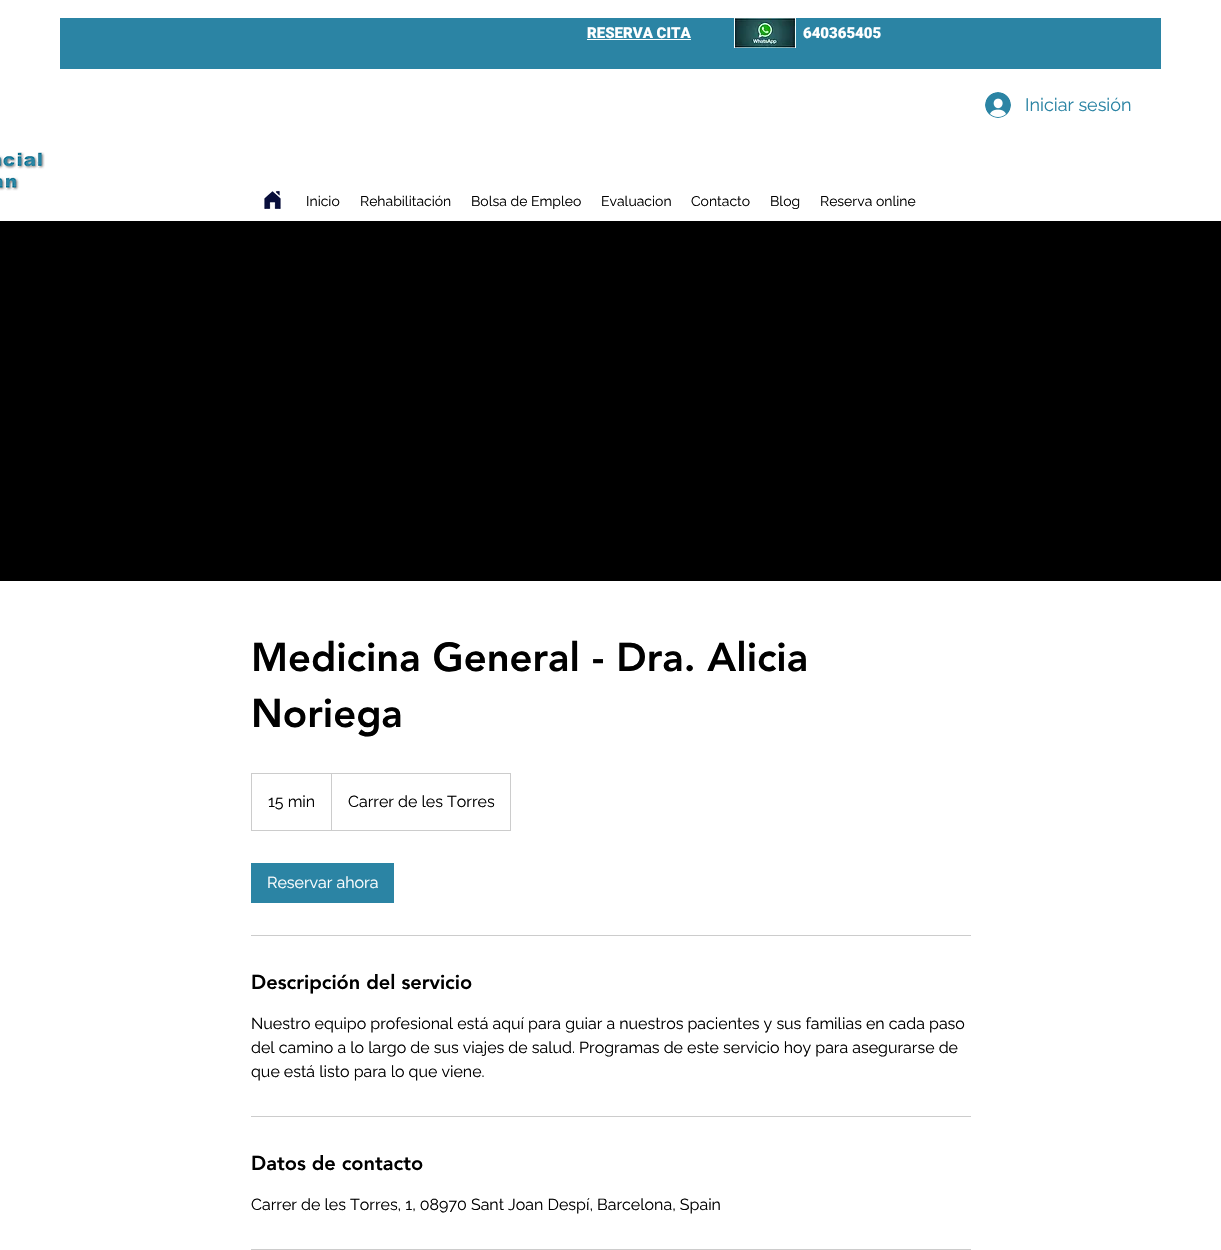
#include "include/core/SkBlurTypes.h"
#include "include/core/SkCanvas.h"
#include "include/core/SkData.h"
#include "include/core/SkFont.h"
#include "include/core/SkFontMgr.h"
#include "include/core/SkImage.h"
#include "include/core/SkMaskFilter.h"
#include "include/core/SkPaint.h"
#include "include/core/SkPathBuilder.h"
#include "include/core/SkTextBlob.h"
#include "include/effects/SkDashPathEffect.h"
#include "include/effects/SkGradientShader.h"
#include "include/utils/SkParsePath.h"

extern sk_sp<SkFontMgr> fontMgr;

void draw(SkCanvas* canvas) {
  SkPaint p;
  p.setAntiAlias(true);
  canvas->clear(SK_ColorWHITE);
  p.setColor(SkColorSetRGB(43, 132, 164));
  canvas->drawRect(SkRect::MakeLTRB(60, 18, 1161, 69), p);
  p.setColor(SK_ColorWHITE);
  canvas->drawRect(SkRect::MakeLTRB(587, 39, 691, 40), p);
  canvas->drawImageRect(SkImages::DeferredFromEncodedData(SkData::MakeFromFileName("images/1.png")), SkRect::MakeLTRB(734, 18, 796, 48), SkSamplingOptions());
  canvas->drawImageRect(SkImages::DeferredFromEncodedData(SkData::MakeFromFileName("images/2.png")), SkRect::MakeLTRB(985, 92, 1011, 118), SkSamplingOptions());
  canvas->drawImageRect(SkImages::DeferredFromEncodedData(SkData::MakeFromFileName("images/3.png")), SkRect::MakeLTRB(0, 152, 45, 191), SkSamplingOptions());
  canvas->drawImageRect(SkImages::DeferredFromEncodedData(SkData::MakeFromFileName("images/4.png")), SkRect::MakeLTRB(264, 190, 281, 209), SkSamplingOptions());
  p.setColor(SK_ColorBLACK);
  canvas->drawRect(SkRect::MakeLTRB(0, 221, 1221, 581), p);
  p.setStyle(SkPaint::kStroke_Style);
  p.setStrokeWidth(1);
  p.setColor(SkColorSetRGB(204, 204, 204));
  canvas->drawRect(SkRect::MakeLTRB(251.5f, 773.5f, 510.5f, 830.5f), p);
  p.setStyle(SkPaint::kFill_Style);
  canvas->drawPath(SkPathBuilder().moveTo(331, 830).lineTo(331, 773).lineTo(332, 774).lineTo(332, 830).close().detach(), p);
  p.setColor(SkColorSetRGB(43, 132, 164));
  canvas->drawRect(SkRect::MakeLTRB(251, 863, 394, 903), p);
  p.setColor(SkColorSetRGB(204, 204, 204));
  canvas->drawRect(SkRect::MakeLTRB(251, 935, 971, 936), p);
  canvas->drawRect(SkRect::MakeLTRB(251, 1116, 971, 1117), p);
  canvas->drawRect(SkRect::MakeLTRB(251, 1249, 971, 1250), p);
  SkFont font1(fontMgr->matchFamilyStyle("Roboto", SkFontStyle(900, SkFontStyle::kNormal_Width, SkFontStyle::kUpright_Slant)), 15);
  font1.setSubpixel(true);
  p.setColor(SK_ColorWHITE);
  canvas->drawString("RESERVA CITA", 587, 38, font1, p);
  canvas->drawString("640365405", 803, 38, font1, p);
  SkFont font2(fontMgr->matchFamilyStyle("Raleway", SkFontStyle::Normal()), 18);
  font2.setSubpixel(true);
  p.setColor(SkColorSetRGB(43, 132, 164));
  canvas->drawString("Iniciar sesión", 1025, 111, font2, p);
  SkFont font3(fontMgr->matchFamilyStyle("Raleway", SkFontStyle::Normal()), 14);
  font3.setSubpixel(true);
  p.setColor(SK_ColorBLACK);
  canvas->drawString("Inicio", 306, 206, font3, p);
  canvas->drawString("Rehabilitación", 360, 206, font3, p);
  canvas->drawString("Bolsa de Empleo", 471, 206, font3, p);
  canvas->drawString("Evaluacion", 601, 206, font3, p);
  canvas->drawString("Contacto", 691, 206, font3, p);
  canvas->drawString("Blog", 770, 206, font3, p);
  canvas->drawString("Reserva online", 820, 206, font3, p);
  SkFont font4(fontMgr->matchFamilyStyle("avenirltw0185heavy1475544", SkFontStyle(900, SkFontStyle::kNormal_Width, SkFontStyle::kUpright_Slant)), 40);
  font4.setSubpixel(true);
  canvas->drawString("Medicina General - Dra. Alicia", 251, 671, font4, p);
  canvas->drawString("Noriega", 251, 727, font4, p);
  SkFont font5(fontMgr->matchFamilyStyle("Raleway", SkFontStyle::Normal()), 16);
  font5.setSubpixel(true);
  canvas->drawString("15 min", 268, 807, font5, p);
  canvas->drawString("Carrer de les Torres", 348, 807, font5, p);
  p.setColor(SK_ColorWHITE);
  canvas->drawString("Reservar ahora", 267, 888, font5, p);
  SkFont font6(fontMgr->matchFamilyStyle("avenirltw0185heavy1475544", SkFontStyle(900, SkFontStyle::kNormal_Width, SkFontStyle::kUpright_Slant)), 20);
  font6.setSubpixel(true);
  p.setColor(SK_ColorBLACK);
  canvas->drawString("Descripción del servicio", 251, 989, font6, p);
  canvas->drawString("Nuestro equipo profesional está aquí para guiar a nuestros pacientes y sus familias en cada paso", 251, 1029, font5, p);
  canvas->drawString("del camino a lo largo de sus viajes de salud. Programas de este servicio hoy para asegurarse de", 251, 1053, font5, p);
  canvas->drawString("que está listo para lo que viene.", 251, 1077, font5, p);
  canvas->drawString("Datos de contacto", 251, 1170, font6, p);
  canvas->drawString("Carrer de les Torres, 1, 08970 Sant Joan Despí, Barcelona, Spain", 251, 1210, font5, p);
}
